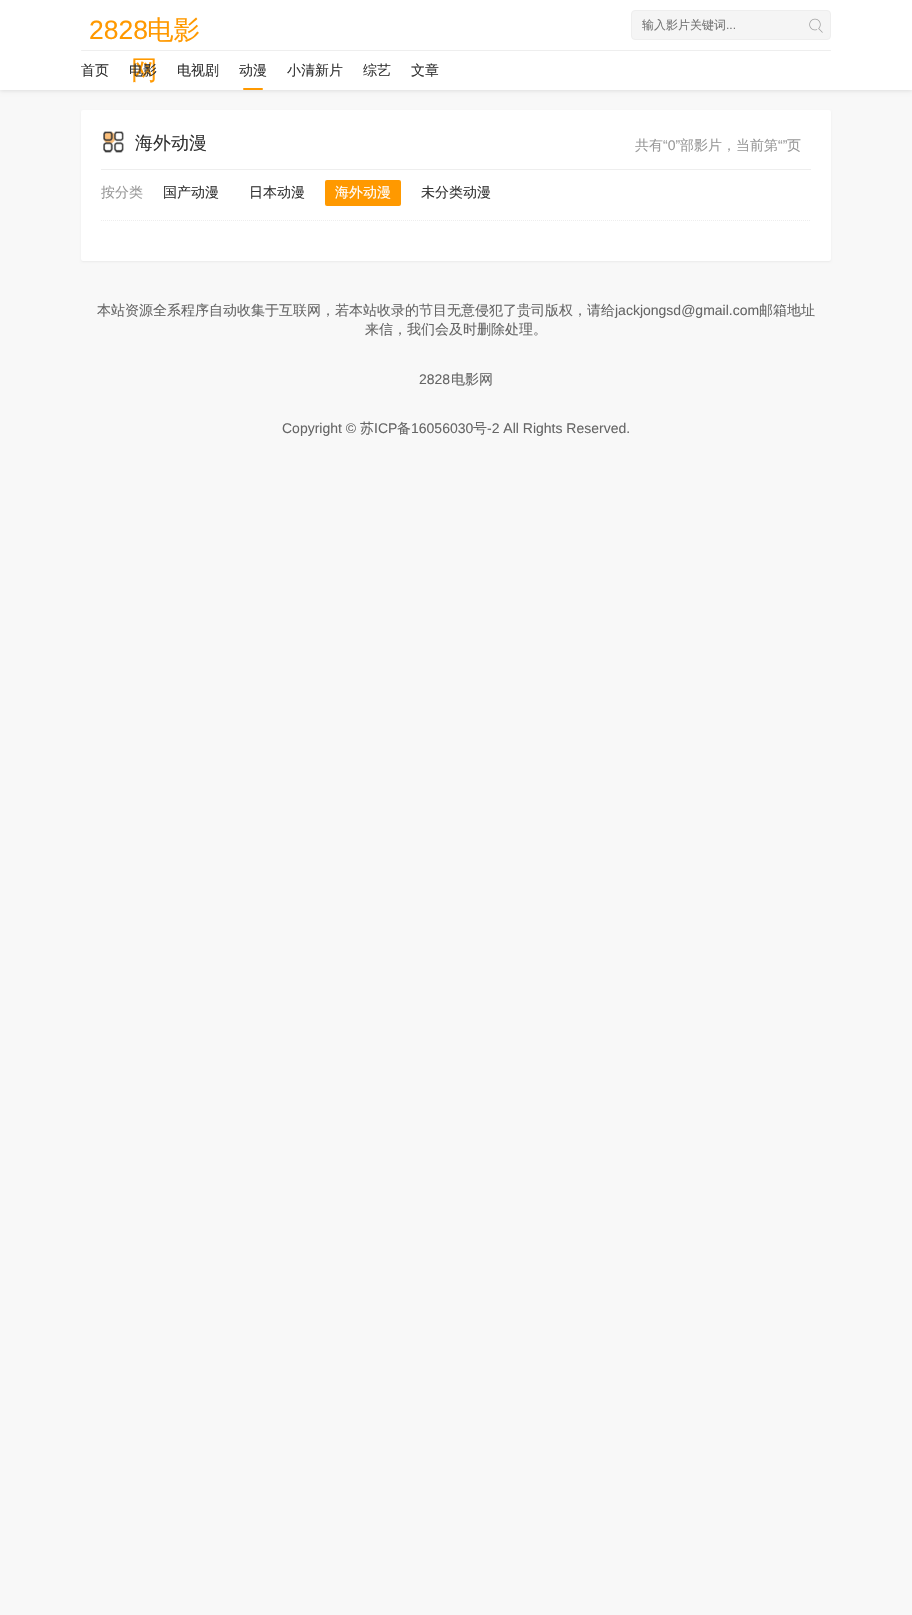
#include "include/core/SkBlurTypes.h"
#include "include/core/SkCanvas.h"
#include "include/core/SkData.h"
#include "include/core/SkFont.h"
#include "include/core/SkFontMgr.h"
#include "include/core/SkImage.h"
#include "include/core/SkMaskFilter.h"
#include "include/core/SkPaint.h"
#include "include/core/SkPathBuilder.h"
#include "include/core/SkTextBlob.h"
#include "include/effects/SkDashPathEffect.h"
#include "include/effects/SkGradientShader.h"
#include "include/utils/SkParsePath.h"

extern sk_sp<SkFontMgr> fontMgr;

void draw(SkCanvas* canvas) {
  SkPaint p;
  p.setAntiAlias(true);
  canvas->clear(SkColorSetRGB(248, 248, 248));
  p.setColor(SkColorSetARGB(26, 0, 0, 0));
  p.setMaskFilter(SkMaskFilter::MakeBlur(kNormal_SkBlurStyle, 2));
  canvas->drawRect(SkRect::MakeLTRB(0, 1, 912, 91), p);
  p.setMaskFilter(nullptr);
  p.setColor(SK_ColorWHITE);
  canvas->drawRect(SkRect::MakeLTRB(0, 0, 912, 90), p);
  p.setColor(SkColorSetRGB(245, 245, 245));
  canvas->drawRoundRect(SkRect::MakeLTRB(631.5f, 10.5f, 830.5f, 39.5f), 3.5f, 3.5f, p);
  p.setStyle(SkPaint::kStroke_Style);
  p.setStrokeWidth(1);
  p.setColor(SkColorSetRGB(238, 238, 238));
  canvas->drawRoundRect(SkRect::MakeLTRB(631.5f, 10.5f, 830.5f, 39.5f), 3.5f, 3.5f, p);
  canvas->drawImageRect(SkImages::DeferredFromEncodedData(SkData::MakeFromFileName("images/1.png")), SkRect::MakeLTRB(809, 18, 823, 33), SkSamplingOptions());
  p.setStyle(SkPaint::kFill_Style);
  canvas->drawRoundRect(SkRect::MakeLTRB(81, 50, 831, 51), 0.5f, 0.5f, p);
  p.setColor(SkColorSetRGB(255, 153, 0));
  canvas->drawRoundRect(SkRect::MakeLTRB(243, 88, 263, 90), 1, 1, p);
  p.setColor(SkColorSetARGB(13, 0, 0, 0));
  p.setMaskFilter(SkMaskFilter::MakeBlur(kNormal_SkBlurStyle, 1));
  canvas->drawRoundRect(SkRect::MakeLTRB(81, 111, 831, 262), 2, 2, p);
  p.setMaskFilter(nullptr);
  p.setColor(SK_ColorWHITE);
  canvas->drawRoundRect(SkRect::MakeLTRB(81, 110, 831, 261), 2, 2, p);
  canvas->drawImageRect(SkImages::DeferredFromEncodedData(SkData::MakeFromFileName("images/2.png")), SkRect::MakeLTRB(103, 131, 124, 153), SkSamplingOptions());
  p.setColor(SkColorSetRGB(238, 238, 238));
  canvas->drawRect(SkRect::MakeLTRB(101, 169, 811, 170), p);
  p.setColor(SkColorSetRGB(255, 153, 0));
  canvas->drawRoundRect(SkRect::MakeLTRB(325, 180, 401, 206), 2, 2, p);
  p.setStyle(SkPaint::kStroke_Style);
  p.setColor(SkColorSetRGB(238, 238, 238));
  p.setPathEffect(SkDashPathEffect::Make({{1, 1}}, 0));
  canvas->drawPath(SkPathBuilder().moveTo(101, 220.5f).lineTo(811, 220.5f).detach(), p);
  p.setPathEffect(nullptr);
  SkFont font1(fontMgr->matchFamilyStyle("Liberation Sans", SkFontStyle::Normal()), 26.5f);
  font1.setSubpixel(true);
  p.setStyle(SkPaint::kFill_Style);
  p.setColor(SkColorSetRGB(255, 153, 0));
  canvas->drawString("2828", 89, 39, font1, p);
  SkFont font2(fontMgr->matchFamilyStyle("WenQuanYi Zen Hei", SkFontStyle(500, SkFontStyle::kNormal_Width, SkFontStyle::kUpright_Slant)), 26.5f);
  font2.setSubpixel(true);
  canvas->drawString("电影", 147, 39, font2, p);
  canvas->drawString("网", 131, 79, font2, p);
  SkFont font3(fontMgr->matchFamilyStyle("WenQuanYi Zen Hei", SkFontStyle(500, SkFontStyle::kNormal_Width, SkFontStyle::kUpright_Slant)), 12);
  font3.setSubpixel(true);
  p.setColor(SkColorSetRGB(117, 117, 117));
  canvas->drawString("输入影片关键词", 642, 29, font3, p);
  SkFont font4(fontMgr->matchFamilyStyle("Liberation Sans", SkFontStyle::Normal()), 12);
  font4.setSubpixel(true);
  canvas->drawString("...", 726, 29, font4, p);
  SkFont font5(fontMgr->matchFamilyStyle("WenQuanYi Zen Hei", SkFontStyle(500, SkFontStyle::kNormal_Width, SkFontStyle::kUpright_Slant)), 14);
  font5.setSubpixel(true);
  p.setColor(SkColorSetRGB(51, 51, 51));
  canvas->drawString("首页", 81, 75, font5, p);
  canvas->drawString("电影", 129, 75, font5, p);
  canvas->drawString("电视剧", 177, 75, font5, p);
  canvas->drawString("动漫", 239, 75, font5, p);
  canvas->drawString("小清新片", 287, 75, font5, p);
  canvas->drawString("综艺", 363, 75, font5, p);
  canvas->drawString("文章", 411, 75, font5, p);
  SkFont font6(fontMgr->matchFamilyStyle("WenQuanYi Zen Hei", SkFontStyle(500, SkFontStyle::kNormal_Width, SkFontStyle::kUpright_Slant)), 18);
  font6.setSubpixel(true);
  canvas->drawString("海外动漫", 135, 149, font6, p);
  p.setColor(SkColorSetRGB(153, 153, 153));
  canvas->drawString("共有", 635, 150, font5, p);
  SkFont font7(fontMgr->matchFamilyStyle("Liberation Sans", SkFontStyle::Normal()), 14);
  font7.setSubpixel(true);
  canvas->drawString("“0”", 663, 150, font7, p);
  canvas->drawString("部影片，当前第", 680, 150, font5, p);
  canvas->drawString("“”", 778, 150, font7, p);
  canvas->drawString("页", 787, 150, font5, p);
  canvas->drawString("按分类", 101, 197, font5, p);
  p.setColor(SkColorSetRGB(51, 51, 51));
  canvas->drawString("国产动漫", 163, 197, font5, p);
  canvas->drawString("日本动漫", 249, 197, font5, p);
  p.setColor(SK_ColorWHITE);
  canvas->drawString("海外动漫", 335, 197, font5, p);
  p.setColor(SkColorSetRGB(51, 51, 51));
  canvas->drawString("未分类动漫", 421, 197, font5, p);
  p.setColor(SkColorSetRGB(102, 102, 102));
  canvas->drawString("本站资源全系程序自动收集于互联网，若本站收录的节目无意侵犯了贵司版权，请给", 97, 315, font5, p);
  canvas->drawString("jackjongsd@gmail.com", 615, 315, font7, p);
  canvas->drawString("邮箱地址", 759, 315, font5, p);
  canvas->drawString("来信，我们会及时删除处理。", 365, 334, font5, p);
  canvas->drawString("2828", 419, 384, font7, p);
  canvas->drawString("电影网", 451, 384, font5, p);
  canvas->drawString("Copyright ©", 282, 433, font7, p);
  canvas->drawString("苏", 360, 433, font5, p);
  canvas->drawString("ICP", 374, 433, font7, p);
  canvas->drawString("备", 397, 433, font5, p);
  canvas->drawString("16056030", 411, 433, font7, p);
  canvas->drawString("号", 473, 433, font5, p);
  canvas->drawString("-2 All Rights Reserved.", 487, 433, font7, p);
}
